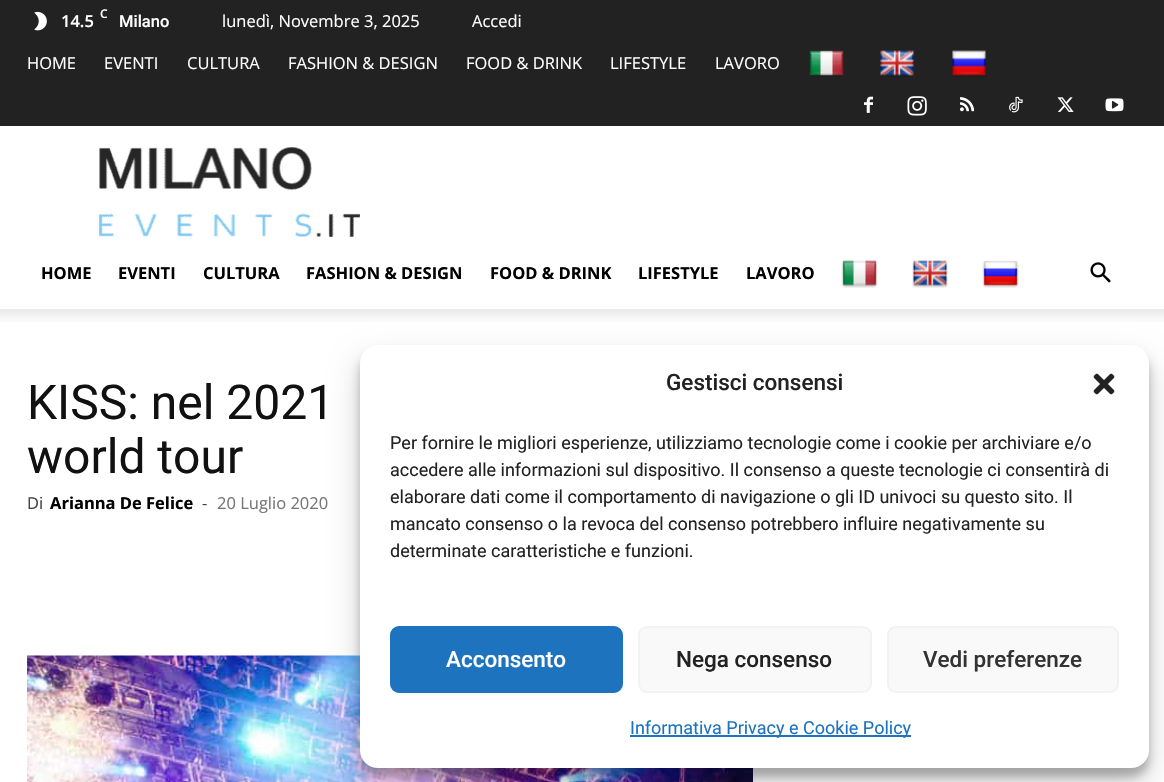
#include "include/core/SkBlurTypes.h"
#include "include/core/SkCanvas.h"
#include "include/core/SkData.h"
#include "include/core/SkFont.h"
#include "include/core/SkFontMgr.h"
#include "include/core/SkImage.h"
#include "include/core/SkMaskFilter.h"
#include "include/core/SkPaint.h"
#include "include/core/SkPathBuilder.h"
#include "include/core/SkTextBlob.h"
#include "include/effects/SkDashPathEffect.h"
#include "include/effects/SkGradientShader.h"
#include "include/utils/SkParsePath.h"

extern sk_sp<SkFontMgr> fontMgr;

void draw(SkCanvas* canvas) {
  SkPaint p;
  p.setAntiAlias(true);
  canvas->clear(SK_ColorWHITE);
  p.setColor(SkColorSetRGB(34, 34, 34));
  canvas->drawRect(SkRect::MakeLTRB(0, 0, 1164, 126), p);
  canvas->drawImageRect(SkImages::DeferredFromEncodedData(SkData::MakeFromFileName("images/1.png")), SkRect::MakeLTRB(34, 11, 47, 31), SkSamplingOptions());
  canvas->drawImageRect(SkImages::DeferredFromEncodedData(SkData::MakeFromFileName("images/2.png")), SkRect::MakeLTRB(809, 50, 844, 77), SkSamplingOptions());
  canvas->drawImageRect(SkImages::DeferredFromEncodedData(SkData::MakeFromFileName("images/3.png")), SkRect::MakeLTRB(880, 50, 914, 77), SkSamplingOptions());
  canvas->drawImageRect(SkImages::DeferredFromEncodedData(SkData::MakeFromFileName("images/4.png")), SkRect::MakeLTRB(952, 50, 986, 77), SkSamplingOptions());
  canvas->drawImageRect(SkImages::DeferredFromEncodedData(SkData::MakeFromFileName("images/5.png")), SkRect::MakeLTRB(864, 96, 873, 113), SkSamplingOptions());
  canvas->drawImageRect(SkImages::DeferredFromEncodedData(SkData::MakeFromFileName("images/6.png")), SkRect::MakeLTRB(907, 96, 927, 116), SkSamplingOptions());
  canvas->drawImageRect(SkImages::DeferredFromEncodedData(SkData::MakeFromFileName("images/7.png")), SkRect::MakeLTRB(960, 97, 975, 112), SkSamplingOptions());
  canvas->drawImageRect(SkImages::DeferredFromEncodedData(SkData::MakeFromFileName("images/8.png")), SkRect::MakeLTRB(1009, 96, 1023, 113), SkSamplingOptions());
  canvas->drawImageRect(SkImages::DeferredFromEncodedData(SkData::MakeFromFileName("images/9.png")), SkRect::MakeLTRB(1057, 97, 1074, 112), SkSamplingOptions());
  canvas->drawImageRect(SkImages::DeferredFromEncodedData(SkData::MakeFromFileName("images/10.png")), SkRect::MakeLTRB(1105, 98, 1124, 112), SkSamplingOptions());
  canvas->drawImageRect(SkImages::DeferredFromEncodedData(SkData::MakeFromFileName("images/11.png")), SkRect::MakeLTRB(99, 147, 360, 237), SkSamplingOptions());
  canvas->drawImageRect(SkImages::DeferredFromEncodedData(SkData::MakeFromFileName("images/12.png")), SkRect::MakeLTRB(841, 260, 878, 288), SkSamplingOptions());
  canvas->drawImageRect(SkImages::DeferredFromEncodedData(SkData::MakeFromFileName("images/13.png")), SkRect::MakeLTRB(912, 260, 948, 288), SkSamplingOptions());
  canvas->drawImageRect(SkImages::DeferredFromEncodedData(SkData::MakeFromFileName("images/14.png")), SkRect::MakeLTRB(982, 260, 1019, 288), SkSamplingOptions());
  canvas->drawImageRect(SkImages::DeferredFromEncodedData(SkData::MakeFromFileName("images/15.png")), SkRect::MakeLTRB(1090, 262, 1111, 283), SkSamplingOptions());
  canvas->drawImageRect(SkImages::DeferredFromEncodedData(SkData::MakeFromFileName("images/16.png")), SkRect::MakeLTRB(0, 309, 1164, 322), SkSamplingOptions());
  canvas->drawImageRect(SkImages::DeferredFromEncodedData(SkData::MakeFromFileName("images/17.png")), SkRect::MakeLTRB(27, 655, 753, 782), SkSamplingOptions());
  p.setColor(SkColorSetARGB(59, 0, 0, 0));
  p.setMaskFilter(SkMaskFilter::MakeBlur(kNormal_SkBlurStyle, 4.5f));
  canvas->drawRoundRect(SkRect::MakeLTRB(360, 354, 1149, 777), 18, 18, p);
  p.setMaskFilter(nullptr);
  p.setColor(SkColorSetARGB(48, 0, 0, 0));
  p.setMaskFilter(SkMaskFilter::MakeBlur(kNormal_SkBlurStyle, 15));
  canvas->drawRoundRect(SkRect::MakeLTRB(360, 360, 1149, 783), 18, 18, p);
  p.setMaskFilter(nullptr);
  p.setColor(SK_ColorWHITE);
  canvas->drawRoundRect(SkRect::MakeLTRB(360, 345, 1149, 768), 18, 18, p);
  canvas->drawImageRect(SkImages::DeferredFromEncodedData(SkData::MakeFromFileName("images/18.png")), SkRect::MakeLTRB(1093, 373, 1115, 395), SkSamplingOptions());
  p.setColor(SkColorSetRGB(30, 115, 190));
  canvas->drawRoundRect(SkRect::MakeLTRB(391, 627, 622, 692), 8, 8, p);
  p.setStyle(SkPaint::kStroke_Style);
  p.setStrokeWidth(2);
  canvas->drawRoundRect(SkRect::MakeLTRB(391, 627, 622, 692), 8, 8, p);
  p.setStyle(SkPaint::kFill_Style);
  p.setColor(SkColorSetRGB(249, 249, 249));
  canvas->drawRoundRect(SkRect::MakeLTRB(639, 627, 871, 692), 8, 8, p);
  p.setStyle(SkPaint::kStroke_Style);
  p.setColor(SkColorSetRGB(242, 242, 242));
  canvas->drawRoundRect(SkRect::MakeLTRB(639, 627, 871, 692), 8, 8, p);
  p.setStyle(SkPaint::kFill_Style);
  p.setColor(SkColorSetRGB(249, 249, 249));
  canvas->drawRoundRect(SkRect::MakeLTRB(888, 627, 1118, 692), 8, 8, p);
  p.setStyle(SkPaint::kStroke_Style);
  p.setColor(SkColorSetRGB(242, 242, 242));
  canvas->drawRoundRect(SkRect::MakeLTRB(888, 627, 1118, 692), 8, 8, p);
  p.setStyle(SkPaint::kFill_Style);
  p.setColor(SkColorSetRGB(30, 115, 190));
  canvas->drawRect(SkRect::MakeLTRB(630, 735, 911, 737), p);
  SkFont font1(fontMgr->matchFamilyStyle("Open Sans", SkFontStyle(600, SkFontStyle::kNormal_Width, SkFontStyle::kUpright_Slant)), 12);
  font1.setSubpixel(true);
  p.setColor(SK_ColorWHITE);
  canvas->drawString("C", 100, 18, font1, p);
  SkFont font2(fontMgr->matchFamilyStyle("Open Sans", SkFontStyle(600, SkFontStyle::kNormal_Width, SkFontStyle::kUpright_Slant)), 16.5f);
  font2.setSubpixel(true);
  canvas->drawString("14.5", 61, 27, font2, p);
  SkFont font3(fontMgr->matchFamilyStyle("Roboto", SkFontStyle(500, SkFontStyle::kNormal_Width, SkFontStyle::kUpright_Slant)), 16.5f);
  font3.setSubpixel(true);
  canvas->drawString("Milano", 119, 27, font3, p);
  SkFont font4(fontMgr->matchFamilyStyle("Open Sans", SkFontStyle::Normal()), 16.5f);
  font4.setSubpixel(true);
  canvas->drawString("lunedì, Novembre 3, 2025", 222, 27, font4, p);
  canvas->drawString("Accedi", 472, 27, font4, p);
  canvas->drawString("HOME", 27, 69, font4, p);
  canvas->drawString("EVENTI", 104, 69, font4, p);
  canvas->drawString("CULTURA", 187, 69, font4, p);
  canvas->drawString("FASHION & DESIGN", 288, 69, font4, p);
  canvas->drawString("FOOD & DRINK", 466, 69, font4, p);
  canvas->drawString("LIFESTYLE", 610, 69, font4, p);
  canvas->drawString("LAVORO", 715, 69, font4, p);
  SkFont font5(fontMgr->matchFamilyStyle("Open Sans", SkFontStyle::Bold()), 16.5f);
  font5.setSubpixel(true);
  p.setColor(SK_ColorBLACK);
  canvas->drawString("HOME", 41, 279, font5, p);
  canvas->drawString("EVENTI", 118, 279, font5, p);
  canvas->drawString("CULTURA", 203, 279, font5, p);
  canvas->drawString("FASHION & DESIGN", 306, 279, font5, p);
  canvas->drawString("FOOD & DRINK", 490, 279, font5, p);
  canvas->drawString("LIFESTYLE", 638, 279, font5, p);
  canvas->drawString("LAVORO", 746, 279, font5, p);
  SkFont font6(fontMgr->matchFamilyStyle("Roboto", SkFontStyle::Normal()), 48);
  font6.setSubpixel(true);
  p.setColor(SkColorSetRGB(17, 17, 17));
  canvas->drawString("KISS: nel 2021", 27, 419, font6, p);
  canvas->drawString("world tour", 27, 473, font6, p);
  p.setColor(SkColorSetRGB(68, 68, 68));
  canvas->drawString("Di", 27, 509, font4, p);
  p.setColor(SK_ColorBLACK);
  canvas->drawString("Arianna De Felice", 50, 509, font5, p);
  p.setColor(SkColorSetRGB(68, 68, 68));
  canvas->drawString("-", 202, 509, font4, p);
  p.setColor(SkColorSetRGB(118, 118, 118));
  canvas->drawString("20 Luglio 2020", 217, 509, font4, p);
  SkFont font7(fontMgr->matchFamilyStyle("Roboto", SkFontStyle(500, SkFontStyle::kNormal_Width, SkFontStyle::kUpright_Slant)), 22.5f);
  font7.setSubpixel(true);
  p.setColor(SkColorSetRGB(34, 34, 34));
  canvas->drawString("Gestisci consensi", 666, 390, font7, p);
  SkFont font8(fontMgr->matchFamilyStyle("Roboto", SkFontStyle::Normal()), 18);
  font8.setSubpixel(true);
  canvas->drawString("Per fornire le migliori esperienze, utilizziamo tecnologie come i cookie per archiviare e/o", 390, 449, font8, p);
  canvas->drawString("accedere alle informazioni sul dispositivo. Il consenso a queste tecnologie ci consentirà di", 390, 476, font8, p);
  canvas->drawString("elaborare dati come il comportamento di navigazione o gli ID univoci su questo sito. Il", 390, 503, font8, p);
  canvas->drawString("mancato consenso o la revoca del consenso potrebbero influire negativamente su", 390, 530, font8, p);
  canvas->drawString("determinate caratteristiche e funzioni.", 390, 557, font8, p);
  p.setColor(SK_ColorWHITE);
  canvas->drawString("Acconsento", 446, 667, font7, p);
  p.setColor(SkColorSetRGB(34, 34, 34));
  canvas->drawString("Nega consenso", 676, 667, font7, p);
  p.setColor(SkColorSetRGB(51, 51, 51));
  canvas->drawString("Vedi preferenze", 923, 667, font7, p);
  p.setColor(SkColorSetRGB(30, 115, 190));
  canvas->drawString("Informativa Privacy e Cookie Policy", 630, 734, font8, p);
}
